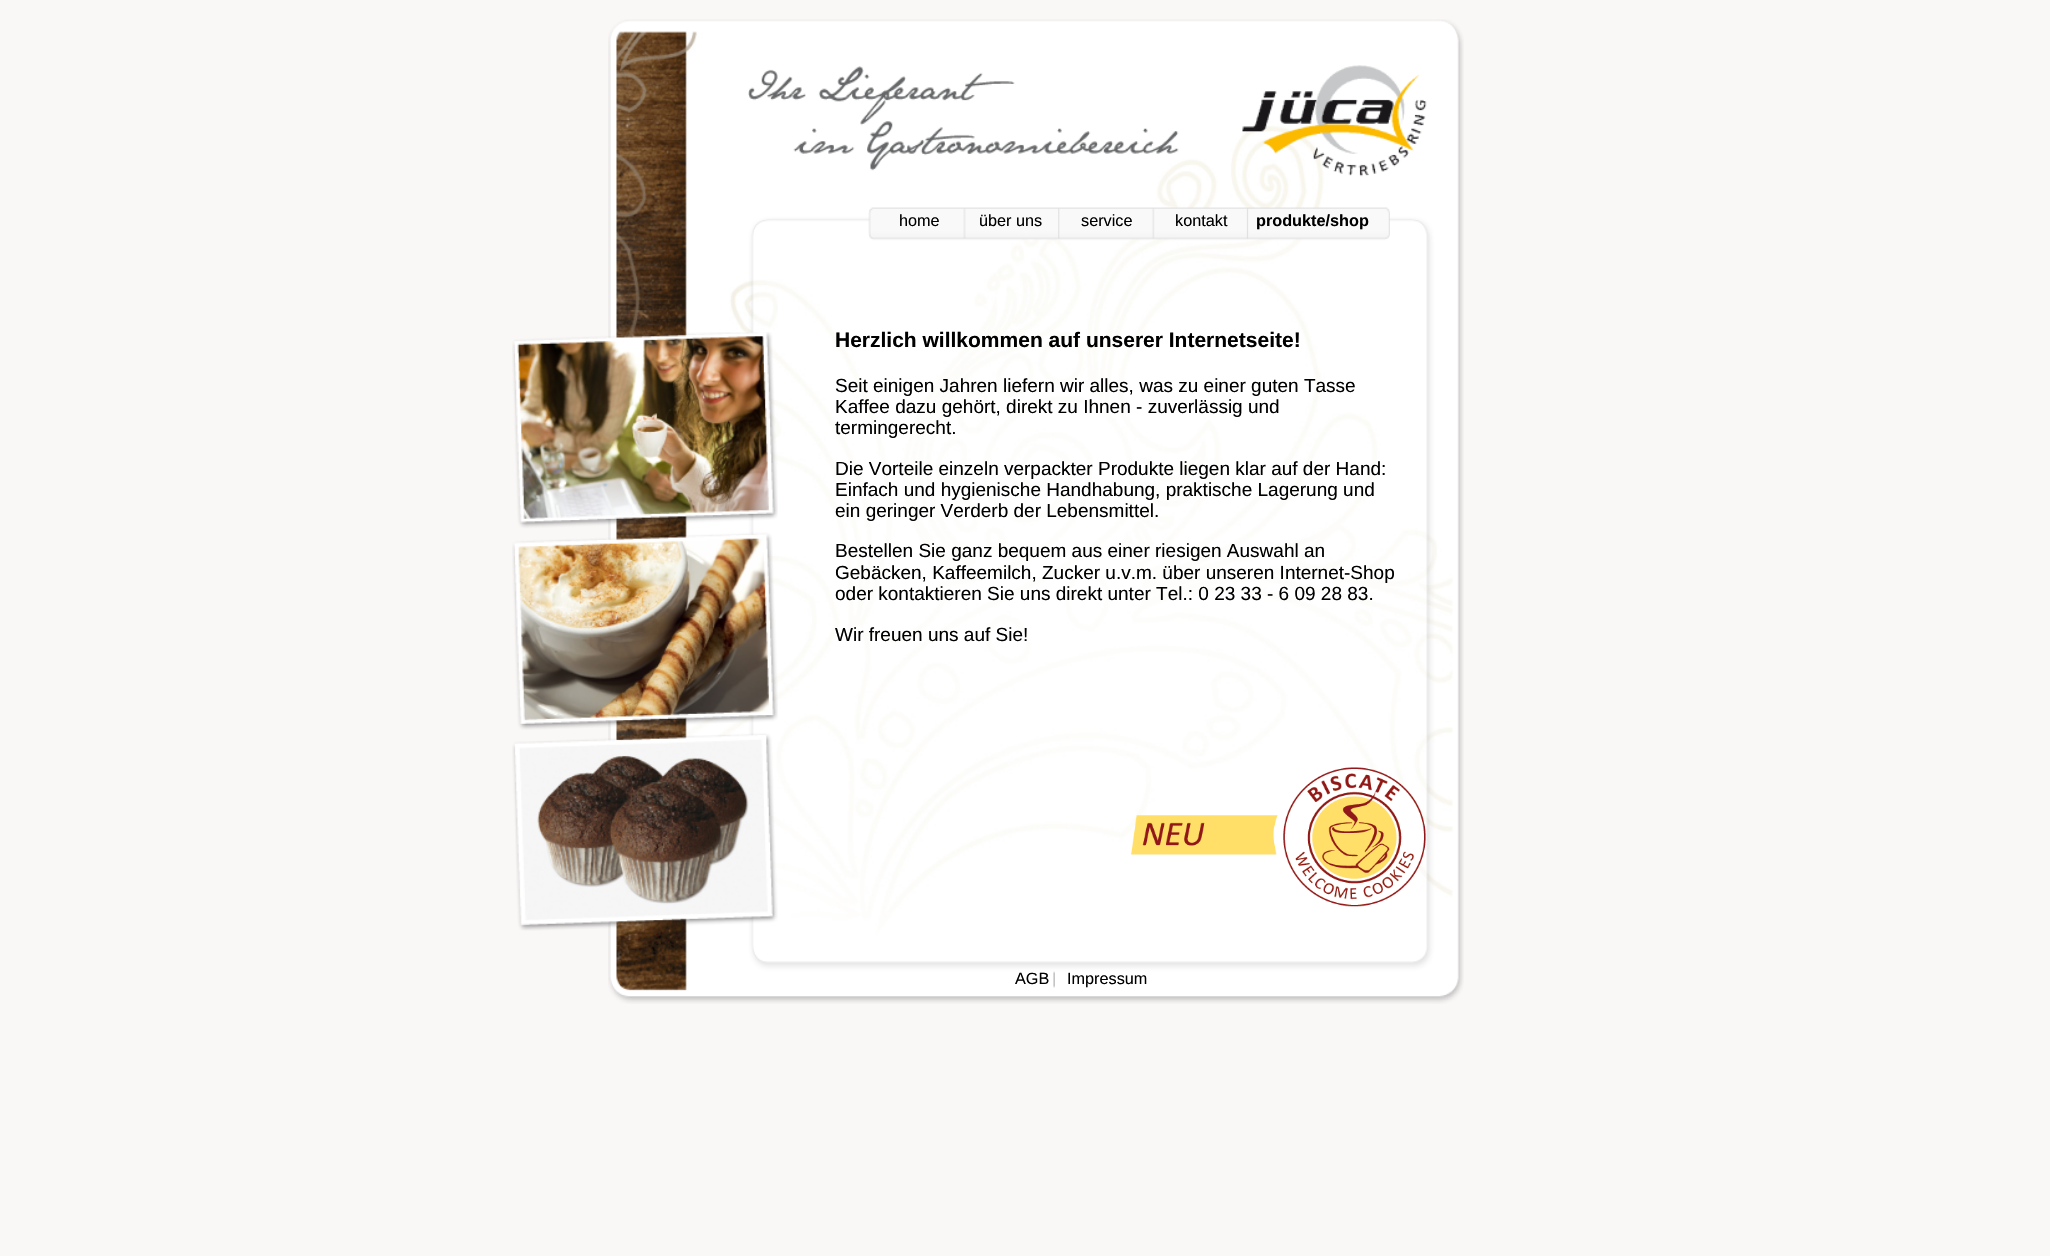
#include "include/core/SkBlurTypes.h"
#include "include/core/SkCanvas.h"
#include "include/core/SkData.h"
#include "include/core/SkFont.h"
#include "include/core/SkFontMgr.h"
#include "include/core/SkImage.h"
#include "include/core/SkMaskFilter.h"
#include "include/core/SkPaint.h"
#include "include/core/SkPathBuilder.h"
#include "include/core/SkTextBlob.h"
#include "include/effects/SkDashPathEffect.h"
#include "include/effects/SkGradientShader.h"
#include "include/utils/SkParsePath.h"

extern sk_sp<SkFontMgr> fontMgr;

void draw(SkCanvas* canvas) {
  SkPaint p;
  p.setAntiAlias(true);
  canvas->clear(SkColorSetRGB(250, 248, 247));
  canvas->drawImageRect(SkImages::DeferredFromEncodedData(SkData::MakeFromFileName("images/1.png")), SkRect::MakeLTRB(608, 19, 1464, 1004), SkSamplingOptions());
  canvas->drawImageRect(SkImages::DeferredFromEncodedData(SkData::MakeFromFileName("images/2.png")), SkRect::MakeLTRB(1242, 65, 1427, 177), SkSamplingOptions());
  canvas->drawImageRect(SkImages::DeferredFromEncodedData(SkData::MakeFromFileName("images/3.png")), SkRect::MakeLTRB(512, 332, 778, 931), SkSamplingOptions());
  canvas->drawImageRect(SkImages::DeferredFromEncodedData(SkData::MakeFromFileName("images/4.png")), SkRect::MakeLTRB(1131, 767, 1426, 907), SkSamplingOptions());
  SkFont font1(fontMgr->matchFamilyStyle("Liberation Sans", SkFontStyle::Normal()), 16.25f);
  font1.setSubpixel(true);
  p.setColor(SK_ColorBLACK);
  canvas->drawString("home", 899, 226, font1, p);
  canvas->drawString("über uns", 979, 226, font1, p);
  canvas->drawString("service", 1081, 226, font1, p);
  canvas->drawString("kontakt", 1175, 226, font1, p);
  SkFont font2(fontMgr->matchFamilyStyle("Liberation Sans", SkFontStyle::Bold()), 16.25f);
  font2.setSubpixel(true);
  canvas->drawString("produkte/shop", 1256, 226, font2, p);
  SkFont font3(fontMgr->matchFamilyStyle("Liberation Sans", SkFontStyle::Bold()), 21);
  font3.setSubpixel(true);
  canvas->drawString("Herzlich willkommen auf unserer Internetseite!", 835, 347, font3, p);
  SkFont font4(fontMgr->matchFamilyStyle("Liberation Sans", SkFontStyle::Normal()), 19);
  font4.setSubpixel(true);
  canvas->drawString("Seit einigen Jahren liefern wir alles, was zu einer guten Tasse", 835, 392, font4, p);
  canvas->drawString("Kaffee dazu gehört, direkt zu Ihnen - zuverlässig und", 835, 413, font4, p);
  canvas->drawString("termingerecht.", 835, 434, font4, p);
  canvas->drawString("Die Vorteile einzeln verpackter Produkte liegen klar auf der Hand:", 835, 475, font4, p);
  canvas->drawString("Einfach und hygienische Handhabung, praktische Lagerung und", 835, 496, font4, p);
  canvas->drawString("ein geringer Verderb der Lebensmittel.", 835, 517, font4, p);
  canvas->drawString("Bestellen Sie ganz bequem aus einer riesigen Auswahl an", 835, 557, font4, p);
  canvas->drawString("Gebäcken, Kaffeemilch, Zucker u.v.m. über unseren Internet-Shop", 835, 579, font4, p);
  canvas->drawString("oder kontaktieren Sie uns direkt unter Tel.: 0 23 33 - 6 09 28 83.", 835, 600, font4, p);
  canvas->drawString("Wir freuen uns auf Sie!", 835, 641, font4, p);
  canvas->drawString("AGB", 1015, 984, font1, p);
  canvas->drawString("Impressum", 1067, 984, font1, p);
}
